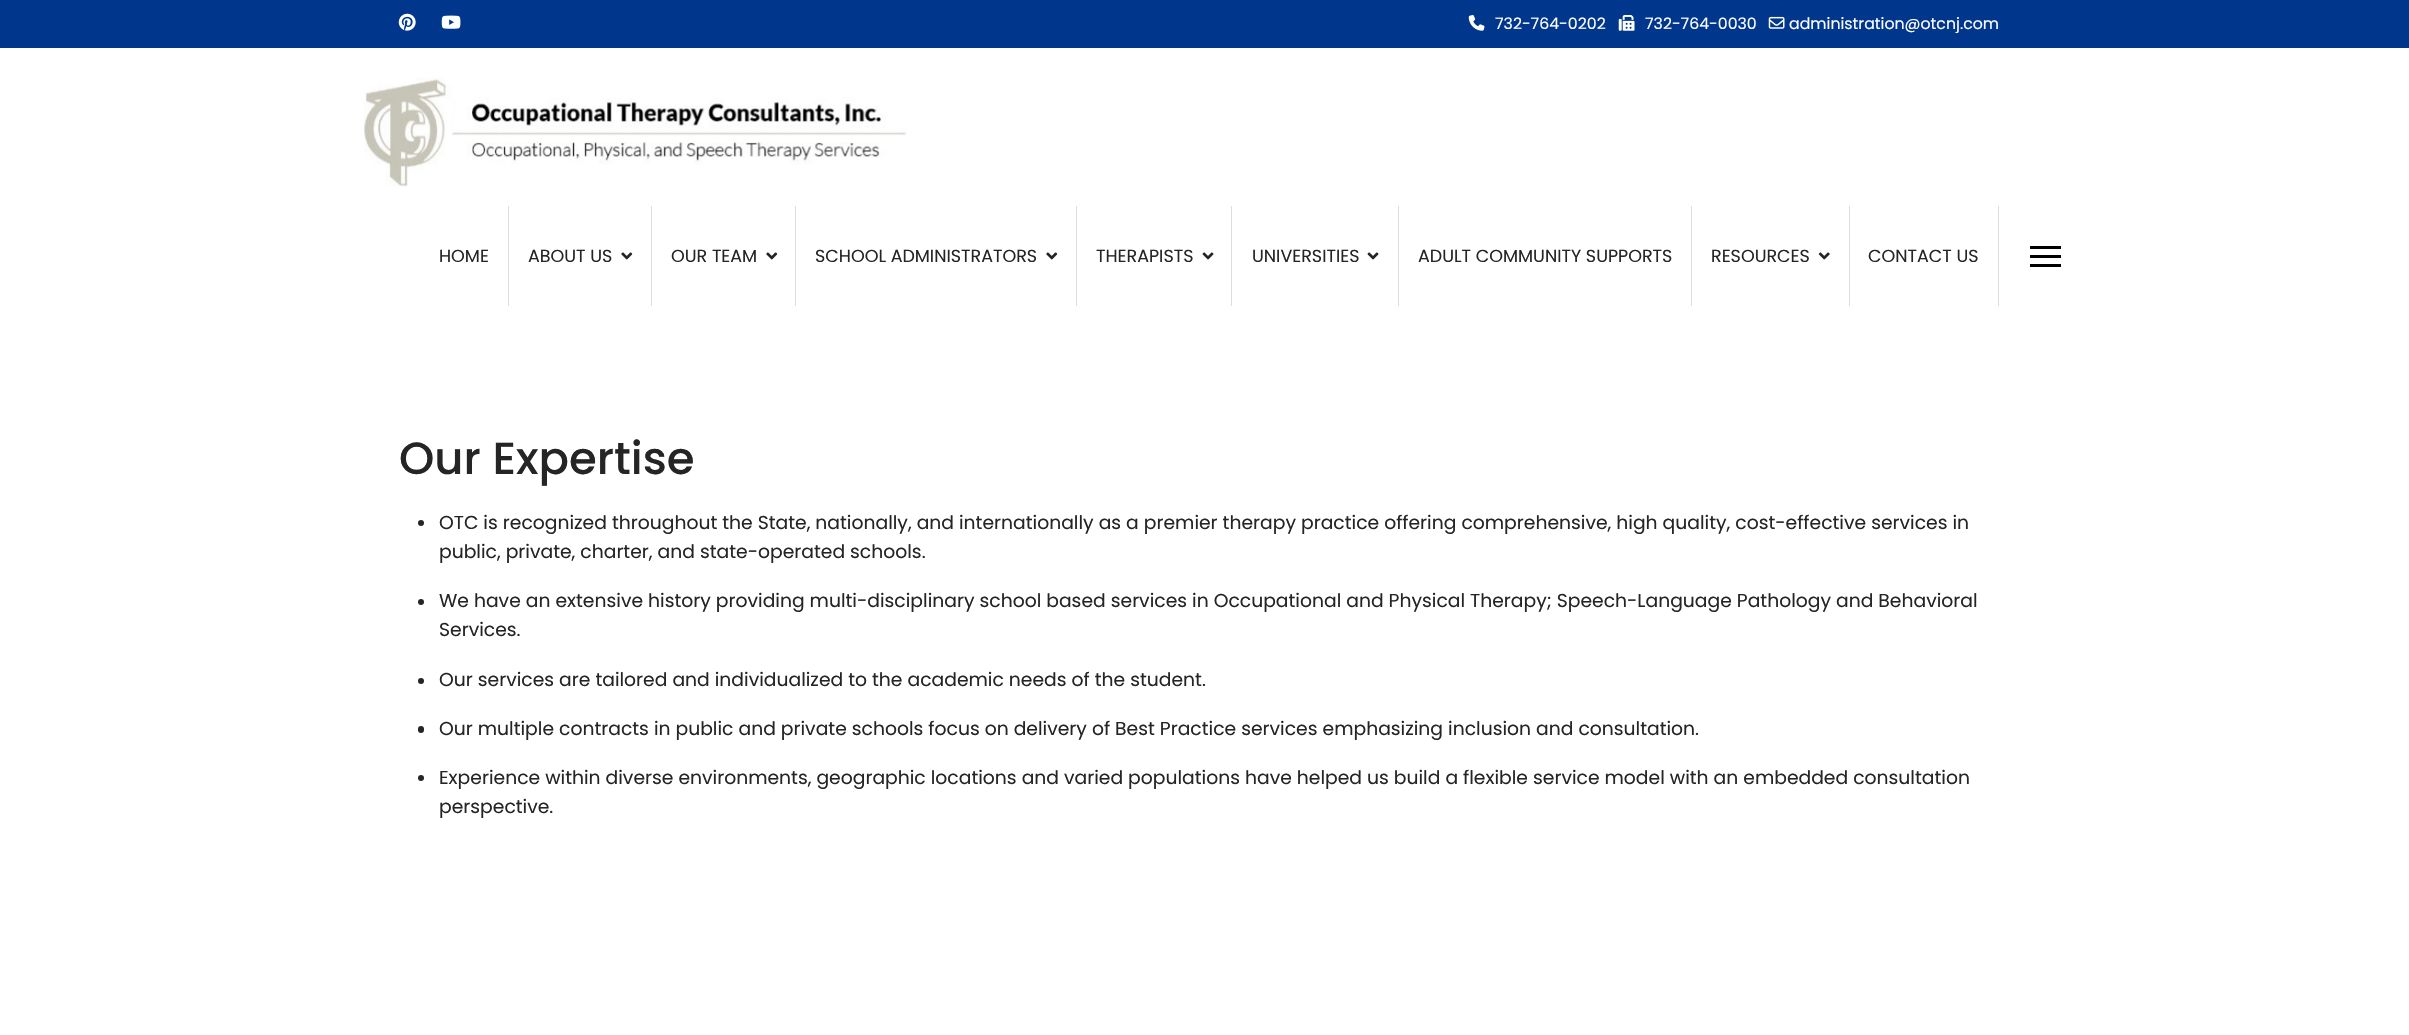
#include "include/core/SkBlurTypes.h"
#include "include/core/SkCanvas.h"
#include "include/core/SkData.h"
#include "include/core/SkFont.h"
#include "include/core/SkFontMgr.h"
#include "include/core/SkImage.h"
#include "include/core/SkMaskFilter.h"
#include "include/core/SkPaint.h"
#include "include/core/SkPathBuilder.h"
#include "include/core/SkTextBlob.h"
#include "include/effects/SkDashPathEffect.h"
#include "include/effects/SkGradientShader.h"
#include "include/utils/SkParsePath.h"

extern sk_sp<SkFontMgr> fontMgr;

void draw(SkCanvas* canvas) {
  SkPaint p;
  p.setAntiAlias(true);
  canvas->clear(SK_ColorWHITE);
  p.setColor(SkColorSetRGB(0, 54, 139));
  canvas->drawRect(SkRect::MakeLTRB(0, 0, 2409, 48), p);
  canvas->drawImageRect(SkImages::DeferredFromEncodedData(SkData::MakeFromFileName("images/1.png")), SkRect::MakeLTRB(398, 13, 416, 31), SkSamplingOptions());
  canvas->drawImageRect(SkImages::DeferredFromEncodedData(SkData::MakeFromFileName("images/2.png")), SkRect::MakeLTRB(441, 15, 461, 29), SkSamplingOptions());
  canvas->drawImageRect(SkImages::DeferredFromEncodedData(SkData::MakeFromFileName("images/3.png")), SkRect::MakeLTRB(1468, 15, 1485, 31), SkSamplingOptions());
  canvas->drawImageRect(SkImages::DeferredFromEncodedData(SkData::MakeFromFileName("images/4.png")), SkRect::MakeLTRB(1618, 15, 1635, 31), SkSamplingOptions());
  canvas->drawImageRect(SkImages::DeferredFromEncodedData(SkData::MakeFromFileName("images/5.png")), SkRect::MakeLTRB(1768, 16, 1785, 29), SkSamplingOptions());
  canvas->drawImageRect(SkImages::DeferredFromEncodedData(SkData::MakeFromFileName("images/6.png")), SkRect::MakeLTRB(364, 77, 907, 187), SkSamplingOptions());
  p.setColor(SkColorSetRGB(221, 221, 221));
  canvas->drawRect(SkRect::MakeLTRB(508, 206, 509, 306), p);
  canvas->drawRect(SkRect::MakeLTRB(651, 206, 652, 306), p);
  canvas->drawImageRect(SkImages::DeferredFromEncodedData(SkData::MakeFromFileName("images/7.png")), SkRect::MakeLTRB(621, 252, 633, 260), SkSamplingOptions());
  canvas->drawRect(SkRect::MakeLTRB(795, 206, 796, 306), p);
  canvas->drawImageRect(SkImages::DeferredFromEncodedData(SkData::MakeFromFileName("images/7.png")), SkRect::MakeLTRB(766, 252, 778, 260), SkSamplingOptions());
  canvas->drawRect(SkRect::MakeLTRB(1076, 206, 1077, 306), p);
  canvas->drawImageRect(SkImages::DeferredFromEncodedData(SkData::MakeFromFileName("images/7.png")), SkRect::MakeLTRB(1046, 252, 1058, 260), SkSamplingOptions());
  canvas->drawRect(SkRect::MakeLTRB(1231, 206, 1232, 306), p);
  canvas->drawImageRect(SkImages::DeferredFromEncodedData(SkData::MakeFromFileName("images/8.png")), SkRect::MakeLTRB(1202, 252, 1214, 260), SkSamplingOptions());
  canvas->drawRect(SkRect::MakeLTRB(1398, 206, 1399, 306), p);
  canvas->drawImageRect(SkImages::DeferredFromEncodedData(SkData::MakeFromFileName("images/8.png")), SkRect::MakeLTRB(1367, 252, 1379, 260), SkSamplingOptions());
  canvas->drawRect(SkRect::MakeLTRB(1691, 206, 1692, 306), p);
  canvas->drawRect(SkRect::MakeLTRB(1849, 206, 1850, 306), p);
  canvas->drawImageRect(SkImages::DeferredFromEncodedData(SkData::MakeFromFileName("images/9.png")), SkRect::MakeLTRB(1818, 252, 1830, 260), SkSamplingOptions());
  canvas->drawRect(SkRect::MakeLTRB(1998, 206, 1999, 306), p);
  p.setColor(SK_ColorBLACK);
  canvas->drawRect(SkRect::MakeLTRB(2030, 246, 2061, 249), p);
  canvas->drawRect(SkRect::MakeLTRB(2030, 255, 2061, 258), p);
  canvas->drawRect(SkRect::MakeLTRB(2030, 264, 2061, 267), p);
  p.setColor(SkColorSetRGB(37, 37, 37));
  canvas->drawCircle(421, 523, 3, p);
  canvas->drawCircle(421, 602, 3, p);
  canvas->drawCircle(421, 681, 3, p);
  canvas->drawRoundRect(SkRect::MakeLTRB(418, 726, 424, 733), 3, 3, p);
  canvas->drawCircle(421, 778, 3, p);
  SkFont font1(fontMgr->matchFamilyStyle("Poppins", SkFontStyle::Normal()), 15.75f);
  font1.setSubpixel(true);
  p.setColor(SK_ColorWHITE);
  canvas->drawString("732-764-0202", 1495, 29, font1, p);
  canvas->drawString("732-764-0030", 1645, 29, font1, p);
  canvas->drawString("administration@otcnj.com", 1789, 29, font1, p);
  SkFont font2(fontMgr->matchFamilyStyle("Poppins", SkFontStyle::Normal()), 17.5f);
  font2.setSubpixel(true);
  p.setColor(SkColorSetRGB(37, 37, 37));
  canvas->drawString("HOME", 439, 262, font2, p);
  canvas->drawString("ABOUT US", 528, 262, font2, p);
  canvas->drawString("OUR TEAM", 671, 262, font2, p);
  canvas->drawString("SCHOOL ADMINISTRATORS", 815, 262, font2, p);
  canvas->drawString("THERAPISTS", 1096, 262, font2, p);
  canvas->drawString("UNIVERSITIES", 1252, 262, font2, p);
  canvas->drawString("ADULT COMMUNITY SUPPORTS", 1418, 262, font2, p);
  canvas->drawString("RESOURCES", 1711, 262, font2, p);
  canvas->drawString("CONTACT US", 1868, 262, font2, p);
  SkFont font3(fontMgr->matchFamilyStyle("Poppins", SkFontStyle(500, SkFontStyle::kNormal_Width, SkFontStyle::kUpright_Slant)), 45);
  font3.setSubpixel(true);
  canvas->drawString("Our Expertise", 399, 474, font3, p);
  SkFont font4(fontMgr->matchFamilyStyle("Poppins", SkFontStyle::Normal()), 18.75f);
  font4.setSubpixel(true);
  canvas->drawString("OTC is recognized throughout the State, nationally, and internationally as a premier therapy practice offering comprehensive, high quality, cost-effective services in", 439, 529, font4, p);
  canvas->drawString("public, private, charter, and state-operated schools.", 439, 558, font4, p);
  canvas->drawString("We have an extensive history providing multi-disciplinary school based services in Occupational and Physical Therapy; Speech-Language Pathology and Behavioral", 439, 607, font4, p);
  canvas->drawString("Services.", 439, 636, font4, p);
  canvas->drawString("Our services are tailored and individualized to the academic needs of the student.", 439, 686, font4, p);
  canvas->drawString("Our multiple contracts in public and private schools focus on delivery of Best Practice services emphasizing inclusion and consultation.", 439, 735, font4, p);
  canvas->drawString("Experience within diverse environments, geographic locations and varied populations have helped us build a flexible service model with an embedded consultation", 439, 784, font4, p);
  canvas->drawString("perspective.", 439, 813, font4, p);
}
